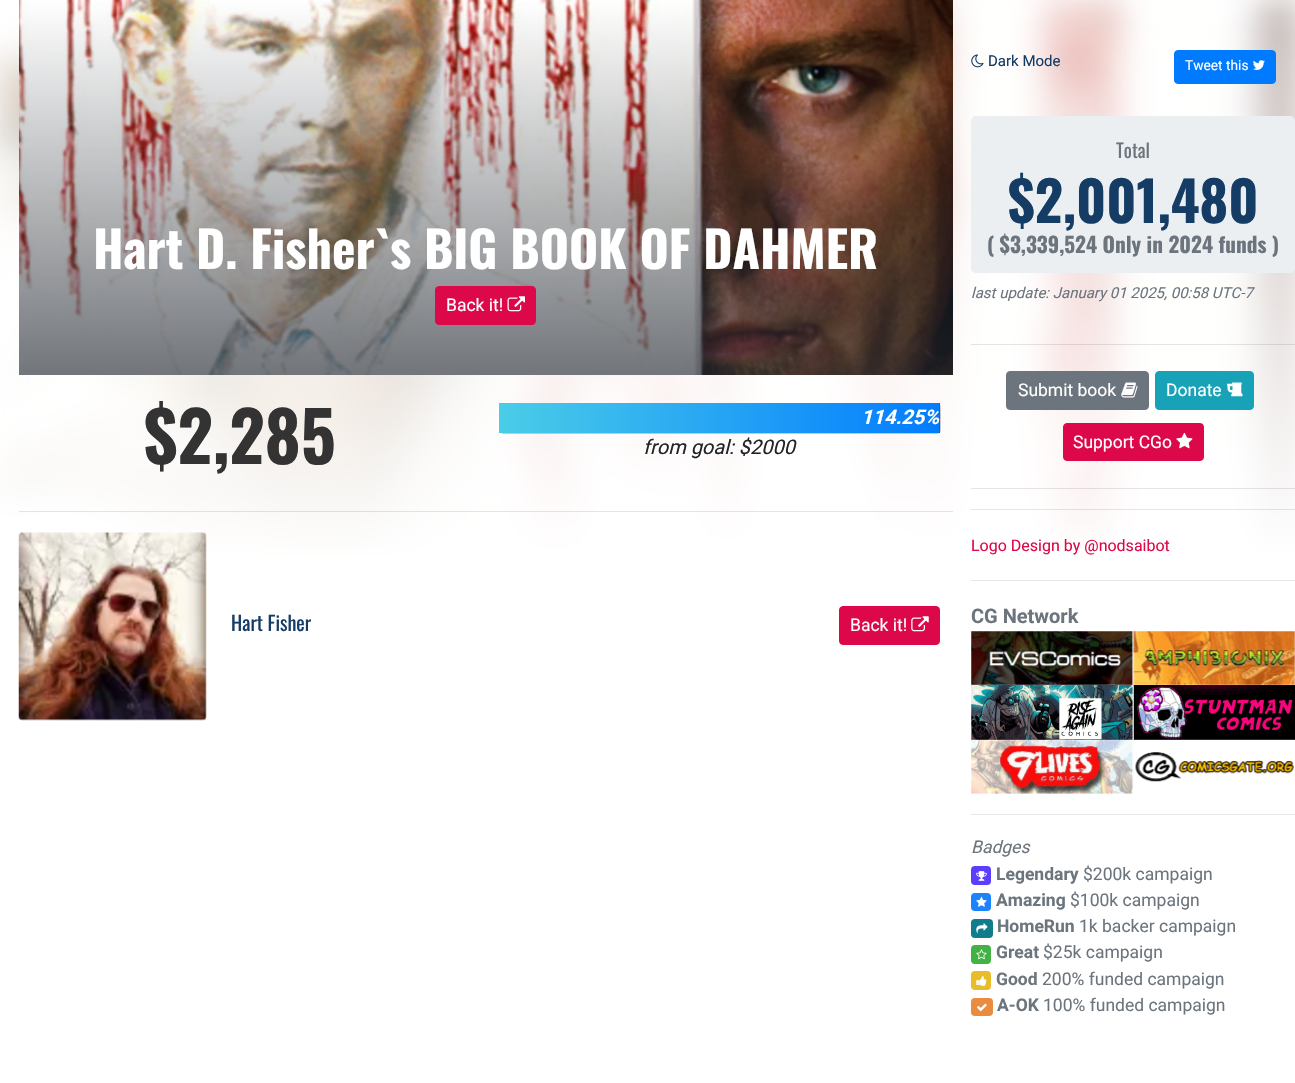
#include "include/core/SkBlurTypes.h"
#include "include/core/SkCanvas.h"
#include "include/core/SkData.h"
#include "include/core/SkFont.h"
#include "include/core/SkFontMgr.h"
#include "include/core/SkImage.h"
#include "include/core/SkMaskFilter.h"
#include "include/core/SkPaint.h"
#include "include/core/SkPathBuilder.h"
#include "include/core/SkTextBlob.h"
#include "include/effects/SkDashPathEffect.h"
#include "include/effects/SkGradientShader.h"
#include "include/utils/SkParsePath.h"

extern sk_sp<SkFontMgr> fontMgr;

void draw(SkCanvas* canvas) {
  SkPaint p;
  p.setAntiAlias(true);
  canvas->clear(SK_ColorWHITE);
  canvas->drawImageRect(SkImages::DeferredFromEncodedData(SkData::MakeFromFileName("images/1.png")), SkRect::MakeLTRB(0, 0, 1295, 560), SkSamplingOptions());
  {
    const SkColor colors[] = {SkColorSetARGB(0, 255, 255, 255), SK_ColorWHITE, SK_ColorWHITE};
    const float stops[] = {0, 0.52f, 1};
    const SkPoint ends[] = {{648, 0}, {648, 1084}};
    p.setShader(SkGradientShader::MakeLinear(ends, colors, stops, 3, SkTileMode::kClamp));
    p.setAlpha(255);
  }
  canvas->drawRect(SkRect::MakeLTRB(0, 19, 1295, 560), p);
  canvas->drawImageRect(SkImages::DeferredFromEncodedData(SkData::MakeFromFileName("images/2.png")), SkRect::MakeLTRB(19, 0, 953, 375), SkSamplingOptions());
  p.setShader(nullptr);
  p.setColor(SkColorSetRGB(221, 8, 73));
  canvas->drawRoundRect(SkRect::MakeLTRB(435.5f, 286.5f, 535.5f, 324.5f), 3.5f, 3.5f, p);
  p.setStyle(SkPaint::kStroke_Style);
  p.setStrokeWidth(1);
  canvas->drawRoundRect(SkRect::MakeLTRB(435.5f, 286.5f, 535.5f, 324.5f), 3.5f, 3.5f, p);
  canvas->drawImageRect(SkImages::DeferredFromEncodedData(SkData::MakeFromFileName("images/3.png")), SkRect::MakeLTRB(507, 296, 525, 312), SkSamplingOptions());
  p.setStyle(SkPaint::kFill_Style);
  p.setColor(SkColorSetARGB(51, 0, 0, 0));
  canvas->drawPath(SkPathBuilder().moveTo(500, 432).cubicTo(501, 433, 502, 434, 504, 434).lineTo(937, 434).cubicTo(939, 434, 941, 432, 941, 430).lineTo(941, 408).cubicTo(941, 407, 941, 406, 940, 405).lineTo(940, 425).cubicTo(940, 428, 940, 432, 936, 432).lineTo(502, 432).close().detach(), p);
  {
    const SkColor colors[] = {SkColorSetRGB(74, 205, 232), SkColorSetRGB(2, 124, 255)};
    const float stops[] = {0, 1};
    const SkPoint ends[] = {{499, 418}, {939, 418}};
    p.setShader(SkGradientShader::MakeLinear(ends, colors, stops, 2, SkTileMode::kClamp));
    p.setAlpha(255);
  }
  canvas->drawRect(SkRect::MakeLTRB(499, 403, 939, 433), p);
  p.setShader(nullptr);
  p.setColor(SkColorSetRGB(5, 101, 209));
  canvas->drawRect(SkRect::MakeLTRB(939, 403, 940, 433), p);
  p.setColor(SkColorSetARGB(26, 0, 0, 0));
  canvas->drawRect(SkRect::MakeLTRB(19, 511, 953, 512), p);
  canvas->drawImageRect(SkImages::DeferredFromEncodedData(SkData::MakeFromFileName("images/4.png")), SkRect::MakeLTRB(18, 532, 207, 721), SkSamplingOptions());
  p.setColor(SkColorSetRGB(221, 8, 73));
  canvas->drawRoundRect(SkRect::MakeLTRB(839.5f, 606.5f, 939.5f, 644.5f), 3.5f, 3.5f, p);
  p.setStyle(SkPaint::kStroke_Style);
  canvas->drawRoundRect(SkRect::MakeLTRB(839.5f, 606.5f, 939.5f, 644.5f), 3.5f, 3.5f, p);
  canvas->drawImageRect(SkImages::DeferredFromEncodedData(SkData::MakeFromFileName("images/5.png")), SkRect::MakeLTRB(911, 616, 929, 632), SkSamplingOptions());
  canvas->drawImageRect(SkImages::DeferredFromEncodedData(SkData::MakeFromFileName("images/6.png")), SkRect::MakeLTRB(971, 54, 984, 68), SkSamplingOptions());
  p.setStyle(SkPaint::kFill_Style);
  p.setColor(SkColorSetRGB(0, 123, 255));
  canvas->drawRoundRect(SkRect::MakeLTRB(1174.5f, 50.5f, 1275.5f, 83.5f), 3.5f, 3.5f, p);
  p.setStyle(SkPaint::kStroke_Style);
  canvas->drawRoundRect(SkRect::MakeLTRB(1174.5f, 50.5f, 1275.5f, 83.5f), 3.5f, 3.5f, p);
  canvas->drawImageRect(SkImages::DeferredFromEncodedData(SkData::MakeFromFileName("images/7.png")), SkRect::MakeLTRB(1253, 60, 1265, 70), SkSamplingOptions());
  p.setStyle(SkPaint::kFill_Style);
  p.setColor(SkColorSetRGB(235, 239, 242));
  canvas->drawRoundRect(SkRect::MakeLTRB(971, 116, 1295, 273), 5, 5, p);
  p.setColor(SkColorSetARGB(26, 0, 0, 0));
  canvas->drawRect(SkRect::MakeLTRB(971, 344, 1295, 345), p);
  p.setColor(SkColorSetRGB(108, 117, 125));
  canvas->drawRoundRect(SkRect::MakeLTRB(1006.5f, 371.5f, 1148.5f, 409.5f), 3.5f, 3.5f, p);
  p.setStyle(SkPaint::kStroke_Style);
  canvas->drawRoundRect(SkRect::MakeLTRB(1006.5f, 371.5f, 1148.5f, 409.5f), 3.5f, 3.5f, p);
  canvas->drawImageRect(SkImages::DeferredFromEncodedData(SkData::MakeFromFileName("images/8.png")), SkRect::MakeLTRB(1121, 382, 1138, 398), SkSamplingOptions());
  p.setStyle(SkPaint::kFill_Style);
  p.setColor(SkColorSetRGB(23, 162, 184));
  canvas->drawRoundRect(SkRect::MakeLTRB(1155.5f, 371.5f, 1253.5f, 409.5f), 3.5f, 3.5f, p);
  p.setStyle(SkPaint::kStroke_Style);
  canvas->drawRoundRect(SkRect::MakeLTRB(1155.5f, 371.5f, 1253.5f, 409.5f), 3.5f, 3.5f, p);
  canvas->drawImageRect(SkImages::DeferredFromEncodedData(SkData::MakeFromFileName("images/9.png")), SkRect::MakeLTRB(1226, 382, 1243, 397), SkSamplingOptions());
  p.setStyle(SkPaint::kFill_Style);
  p.setColor(SkColorSetRGB(221, 8, 73));
  canvas->drawRoundRect(SkRect::MakeLTRB(1063.5f, 423.5f, 1203.5f, 460.5f), 3.5f, 3.5f, p);
  p.setStyle(SkPaint::kStroke_Style);
  canvas->drawRoundRect(SkRect::MakeLTRB(1063.5f, 423.5f, 1203.5f, 460.5f), 3.5f, 3.5f, p);
  canvas->drawImageRect(SkImages::DeferredFromEncodedData(SkData::MakeFromFileName("images/10.png")), SkRect::MakeLTRB(1176, 432, 1193, 449), SkSamplingOptions());
  p.setStyle(SkPaint::kFill_Style);
  p.setColor(SkColorSetARGB(26, 0, 0, 0));
  canvas->drawRect(SkRect::MakeLTRB(971, 488, 1295, 489), p);
  canvas->drawRect(SkRect::MakeLTRB(971, 509, 1295, 510), p);
  p.setColor(SkColorSetRGB(230, 230, 230));
  canvas->drawRect(SkRect::MakeLTRB(971, 580, 1295, 581), p);
  canvas->drawImageRect(SkImages::DeferredFromEncodedData(SkData::MakeFromFileName("images/11.png")), SkRect::MakeLTRB(971, 631, 1134, 686), SkSamplingOptions());
  canvas->drawImageRect(SkImages::DeferredFromEncodedData(SkData::MakeFromFileName("images/12.png")), SkRect::MakeLTRB(1133, 631, 1295, 686), SkSamplingOptions());
  canvas->drawImageRect(SkImages::DeferredFromEncodedData(SkData::MakeFromFileName("images/13.png")), SkRect::MakeLTRB(971, 685, 1133, 740), SkSamplingOptions());
  canvas->drawImageRect(SkImages::DeferredFromEncodedData(SkData::MakeFromFileName("images/14.png")), SkRect::MakeLTRB(1133, 685, 1295, 740), SkSamplingOptions());
  canvas->drawImageRect(SkImages::DeferredFromEncodedData(SkData::MakeFromFileName("images/15.png")), SkRect::MakeLTRB(971, 739, 1134, 794), SkSamplingOptions());
  canvas->drawImageRect(SkImages::DeferredFromEncodedData(SkData::MakeFromFileName("images/16.png")), SkRect::MakeLTRB(1134, 739, 1295, 782), SkSamplingOptions());
  canvas->drawRect(SkRect::MakeLTRB(971, 814, 1295, 815), p);
  p.setColor(SkColorSetRGB(90, 62, 254));
  canvas->drawRoundRect(SkRect::MakeLTRB(971, 866, 991, 885), 4, 4, p);
  canvas->drawImageRect(SkImages::DeferredFromEncodedData(SkData::MakeFromFileName("images/17.png")), SkRect::MakeLTRB(976, 871, 987, 881), SkSamplingOptions());
  p.setColor(SkColorSetRGB(27, 131, 251));
  canvas->drawRoundRect(SkRect::MakeLTRB(971, 893, 991, 911), 4, 4, p);
  canvas->drawImageRect(SkImages::DeferredFromEncodedData(SkData::MakeFromFileName("images/18.png")), SkRect::MakeLTRB(976, 896, 987, 907), SkSamplingOptions());
  p.setColor(SkColorSetRGB(16, 124, 140));
  canvas->drawRoundRect(SkRect::MakeLTRB(971, 919, 993, 938), 4, 4, p);
  canvas->drawImageRect(SkImages::DeferredFromEncodedData(SkData::MakeFromFileName("images/19.png")), SkRect::MakeLTRB(976, 923, 988, 934), SkSamplingOptions());
  p.setColor(SkColorSetRGB(67, 177, 67));
  canvas->drawRoundRect(SkRect::MakeLTRB(971, 945, 991, 964), 4, 4, p);
  canvas->drawImageRect(SkImages::DeferredFromEncodedData(SkData::MakeFromFileName("images/20.png")), SkRect::MakeLTRB(976, 949, 987, 960), SkSamplingOptions());
  p.setColor(SkColorSetRGB(233, 188, 42));
  canvas->drawRoundRect(SkRect::MakeLTRB(971, 971, 991, 990), 4, 4, p);
  canvas->drawImageRect(SkImages::DeferredFromEncodedData(SkData::MakeFromFileName("images/21.png")), SkRect::MakeLTRB(976, 976, 987, 986), SkSamplingOptions());
  p.setColor(SkColorSetRGB(234, 140, 63));
  canvas->drawRoundRect(SkRect::MakeLTRB(971, 998, 993, 1016), 4, 4, p);
  canvas->drawImageRect(SkImages::DeferredFromEncodedData(SkData::MakeFromFileName("images/22.png")), SkRect::MakeLTRB(977, 1003, 987, 1012), SkSamplingOptions());
  SkFont font1(fontMgr->matchFamilyStyle("Oswald", SkFontStyle::Bold()), 50);
  font1.setSubpixel(true);
  p.setColor(SK_ColorWHITE);
  canvas->drawString("Hart D. Fisher`s BIG BOOK OF DAHMER", 93, 269, font1, p);
  SkFont font2(fontMgr->matchFamilyStyle("Roboto", SkFontStyle::Normal()), 17.5f);
  font2.setSubpixel(true);
  canvas->drawString("Back it!", 446, 311, font2, p);
  SkFont font3(fontMgr->matchFamilyStyle("Oswald", SkFontStyle::Bold()), 69);
  font3.setSubpixel(true);
  p.setColor(SkColorSetRGB(51, 51, 51));
  canvas->drawString("$2,285", 144, 464, font3, p);
  SkFont font4(fontMgr->matchFamilyStyle("Roboto", SkFontStyle::BoldItalic()), 20);
  font4.setSubpixel(true);
  p.setColor(SK_ColorWHITE);
  canvas->drawString("114.25%", 861, 424, font4, p);
  SkFont font5(fontMgr->matchFamilyStyle("Roboto", SkFontStyle::Italic()), 20);
  font5.setSubpixel(true);
  p.setColor(SkColorSetRGB(33, 37, 41));
  canvas->drawString("from goal: $2000", 643, 454, font5, p);
  SkFont font6(fontMgr->matchFamilyStyle("Oswald", SkFontStyle::Normal()), 20);
  font6.setSubpixel(true);
  p.setColor(SkColorSetRGB(20, 60, 101));
  canvas->drawString("Hart Fisher", 231, 631, font6, p);
  p.setColor(SK_ColorWHITE);
  canvas->drawString("Back it!", 850, 631, font2, p);
  SkFont font7(fontMgr->matchFamilyStyle("Roboto", SkFontStyle::Normal()), 15);
  font7.setSubpixel(true);
  p.setColor(SkColorSetRGB(20, 60, 101));
  canvas->drawString("Dark Mode", 988, 66, font7, p);
  SkFont font8(fontMgr->matchFamilyStyle("Roboto", SkFontStyle::Normal()), 13.75f);
  font8.setSubpixel(true);
  p.setColor(SK_ColorWHITE);
  canvas->drawString("Tweet this", 1185, 70, font8, p);
  SkFont font9(fontMgr->matchFamilyStyle("Oswald", SkFontStyle::Normal()), 19);
  font9.setSubpixel(true);
  p.setColor(SkColorSetRGB(108, 117, 125));
  canvas->drawString("Total", 1116, 158, font9, p);
  SkFont font10(fontMgr->matchFamilyStyle("Oswald", SkFontStyle::Bold()), 55);
  font10.setSubpixel(true);
  p.setColor(SkColorSetRGB(20, 60, 101));
  canvas->drawString("$2,001,480", 1008, 223, font10, p);
  SkFont font11(fontMgr->matchFamilyStyle("Oswald", SkFontStyle::Bold()), 21.25f);
  font11.setSubpixel(true);
  p.setColor(SkColorSetRGB(108, 117, 125));
  canvas->drawString("( $3,339,524 Only in 2024 funds )", 987, 253, font11, p);
  SkFont font12(fontMgr->matchFamilyStyle("Roboto", SkFontStyle::Italic()), 15);
  font12.setSubpixel(true);
  canvas->drawString("last update: January 01 2025, 00:58 UTC-7", 971, 298, font12, p);
  p.setColor(SK_ColorWHITE);
  canvas->drawString("Submit book", 1018, 396, font2, p);
  canvas->drawString("Donate", 1166, 396, font2, p);
  canvas->drawString("Support CGo", 1073, 448, font2, p);
  SkFont font13(fontMgr->matchFamilyStyle("Roboto", SkFontStyle::Normal()), 16);
  font13.setSubpixel(true);
  p.setColor(SkColorSetRGB(221, 8, 73));
  canvas->drawString("Logo Design by @nodsaibot", 971, 551, font13, p);
  SkFont font14(fontMgr->matchFamilyStyle("Roboto", SkFontStyle::Bold()), 20);
  font14.setSubpixel(true);
  p.setColor(SkColorSetRGB(108, 117, 125));
  canvas->drawString("CG Network", 971, 623, font14, p);
  SkFont font15(fontMgr->matchFamilyStyle("Roboto", SkFontStyle::Italic()), 17.5f);
  font15.setSubpixel(true);
  canvas->drawString("Badges", 971, 853, font15, p);
  SkFont font16(fontMgr->matchFamilyStyle("Roboto", SkFontStyle::Bold()), 17.5f);
  font16.setSubpixel(true);
  canvas->drawString("Legendary", 996, 880, font16, p);
  canvas->drawString("$200k campaign", 1083, 880, font2, p);
  canvas->drawString("Amazing", 996, 906, font16, p);
  canvas->drawString("$100k campaign", 1070, 906, font2, p);
  canvas->drawString("HomeRun", 997, 932, font16, p);
  canvas->drawString("1k backer campaign", 1079, 932, font2, p);
  canvas->drawString("Great", 996, 958, font16, p);
  canvas->drawString("$25k campaign", 1043, 958, font2, p);
  canvas->drawString("Good", 996, 985, font16, p);
  canvas->drawString("200% funded campaign", 1042, 985, font2, p);
  canvas->drawString("A-OK", 997, 1011, font16, p);
  canvas->drawString("100% funded campaign", 1043, 1011, font2, p);
}
